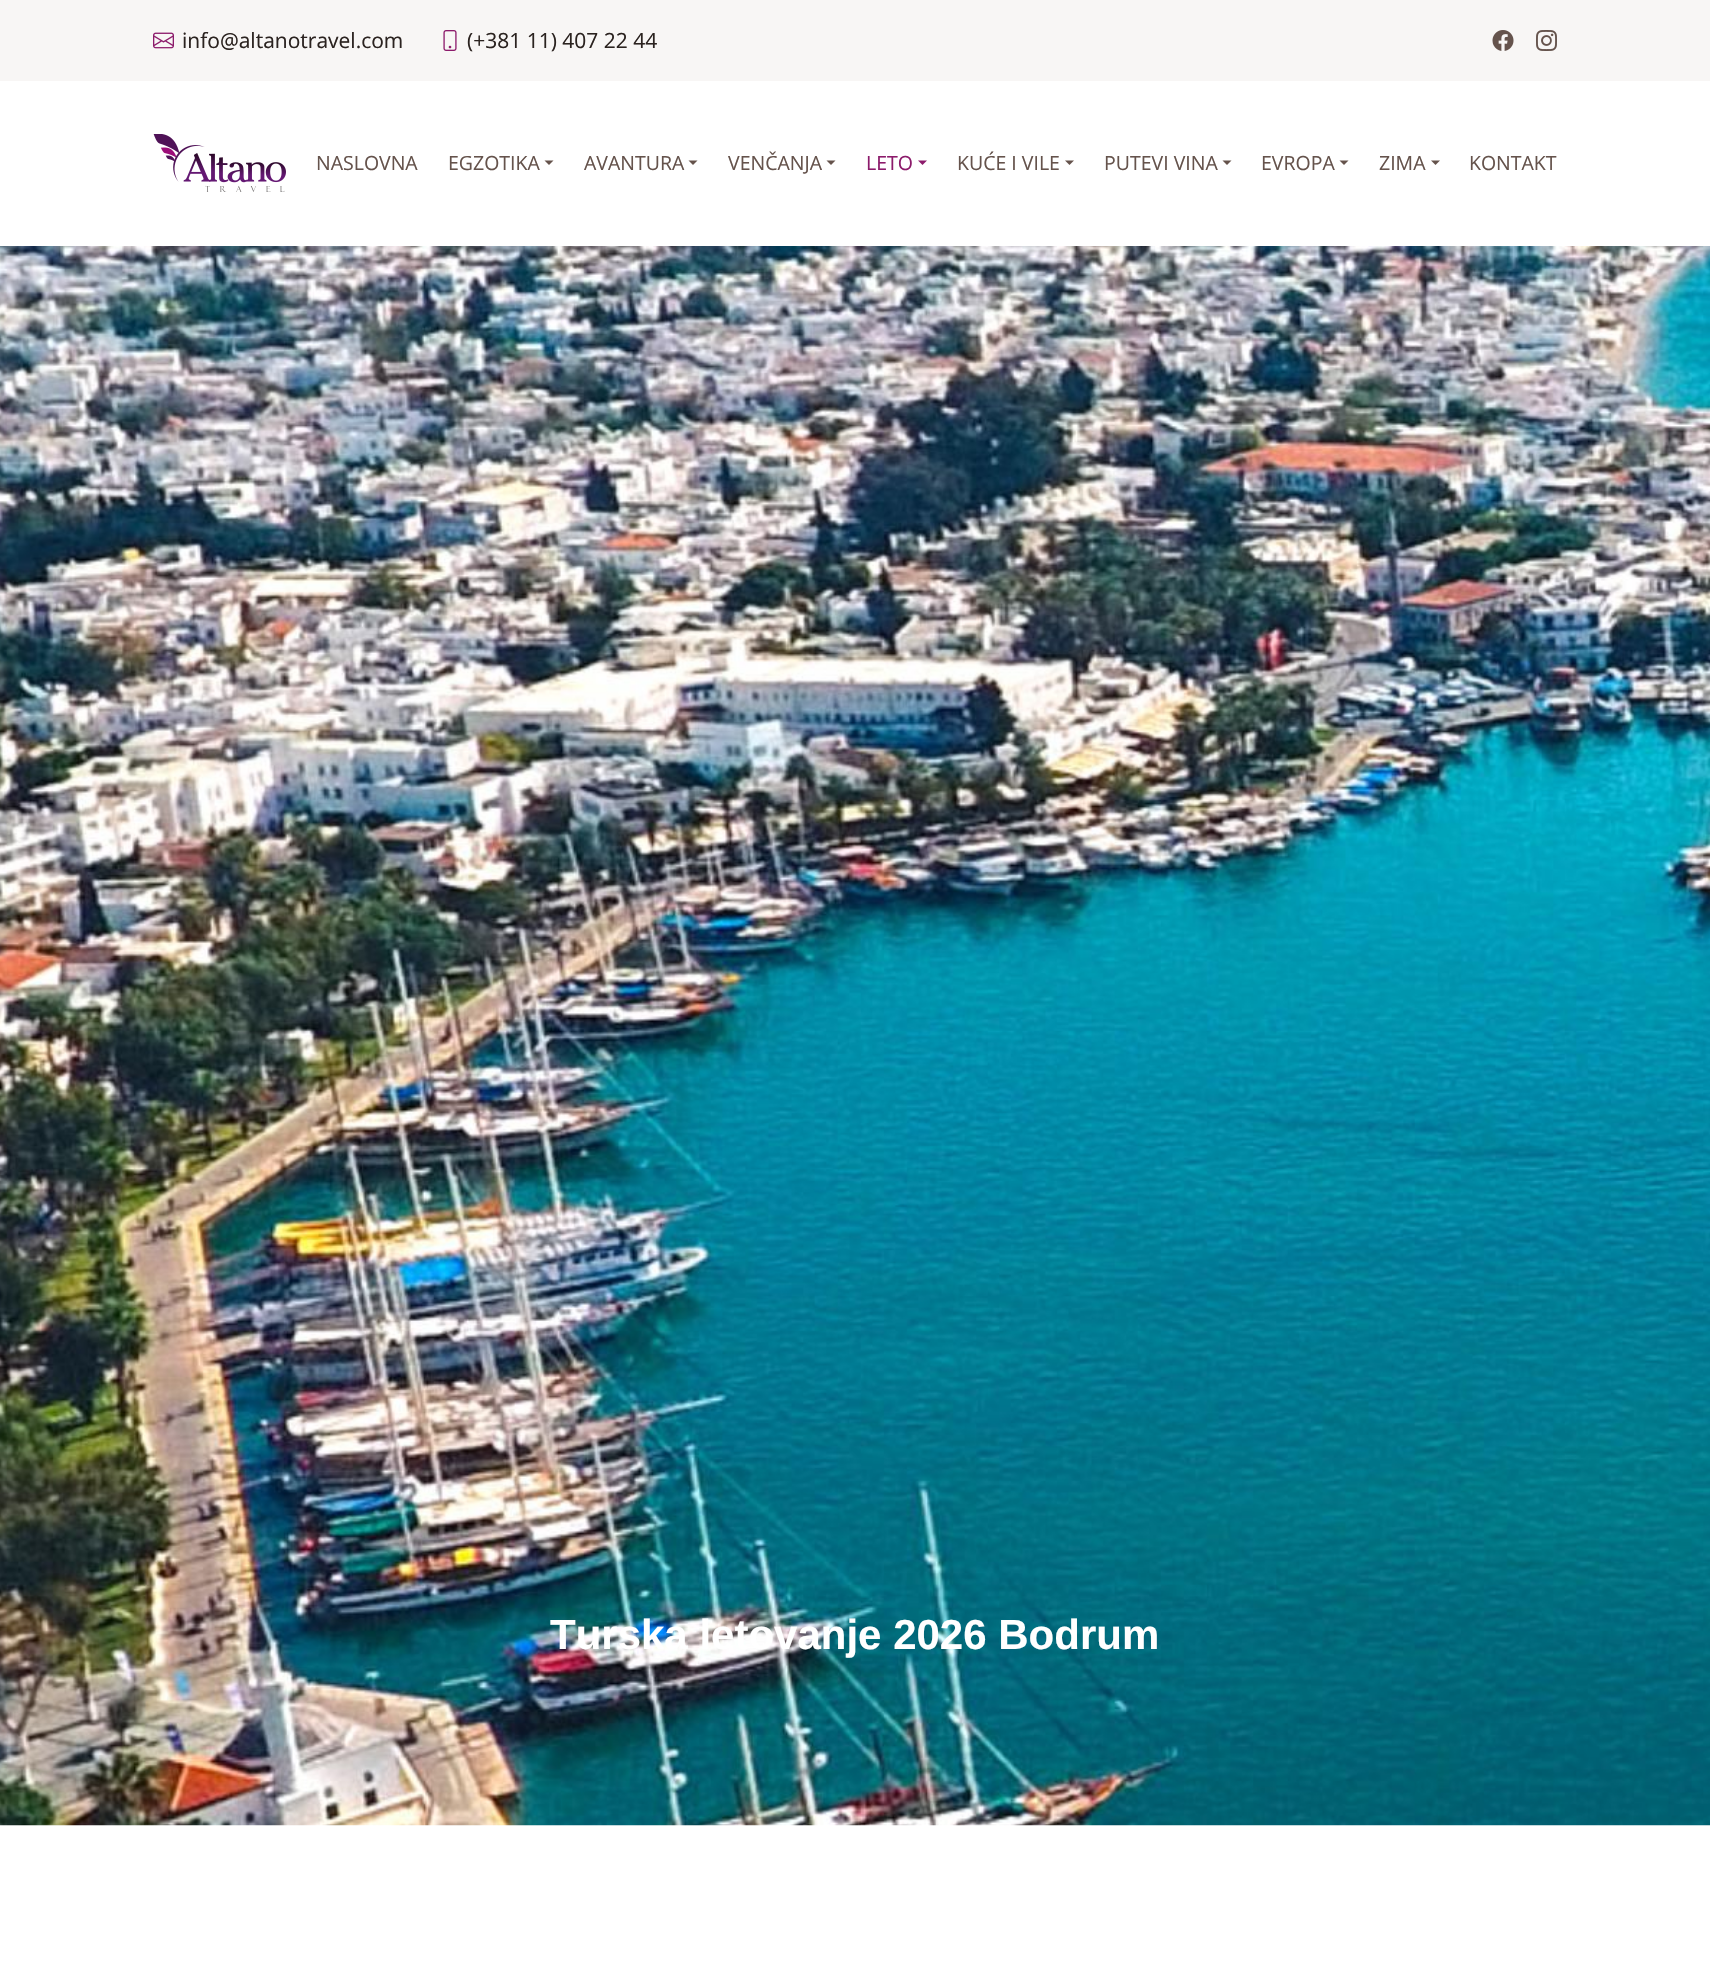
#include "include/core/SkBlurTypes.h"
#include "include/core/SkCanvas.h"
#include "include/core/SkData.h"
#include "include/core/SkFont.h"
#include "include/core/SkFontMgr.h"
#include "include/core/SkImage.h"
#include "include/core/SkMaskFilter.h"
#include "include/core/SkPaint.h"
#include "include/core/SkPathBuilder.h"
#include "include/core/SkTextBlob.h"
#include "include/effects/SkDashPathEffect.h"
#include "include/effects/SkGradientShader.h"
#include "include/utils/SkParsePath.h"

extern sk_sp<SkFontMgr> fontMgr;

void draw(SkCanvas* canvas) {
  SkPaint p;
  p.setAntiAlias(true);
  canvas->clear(SK_ColorWHITE);
  p.setColor(SkColorSetRGB(248, 246, 245));
  canvas->drawRect(SkRect::MakeLTRB(0, 0, 1710, 81), p);
  canvas->drawImageRect(SkImages::DeferredFromEncodedData(SkData::MakeFromFileName("images/1.png")), SkRect::MakeLTRB(153, 32, 174, 49), SkSamplingOptions());
  canvas->drawImageRect(SkImages::DeferredFromEncodedData(SkData::MakeFromFileName("images/2.png")), SkRect::MakeLTRB(443, 30, 457, 51), SkSamplingOptions());
  canvas->drawImageRect(SkImages::DeferredFromEncodedData(SkData::MakeFromFileName("images/3.png")), SkRect::MakeLTRB(1492, 30, 1514, 51), SkSamplingOptions());
  canvas->drawImageRect(SkImages::DeferredFromEncodedData(SkData::MakeFromFileName("images/4.png")), SkRect::MakeLTRB(1536, 30, 1557, 51), SkSamplingOptions());
  canvas->drawImageRect(SkImages::DeferredFromEncodedData(SkData::MakeFromFileName("images/5.png")), SkRect::MakeLTRB(153, 134, 286, 192), SkSamplingOptions());
  p.setColor(SkColorSetRGB(101, 83, 76));
  canvas->drawPath(SkPathBuilder().moveTo(544.5f, 160.5f).lineTo(553.5f, 160.5f).lineTo(549, 165).close().detach(), p);
  canvas->drawPath(SkPathBuilder().moveTo(688.5f, 160.5f).lineTo(697.5f, 160.5f).lineTo(693, 165).close().detach(), p);
  canvas->drawPath(SkPathBuilder().moveTo(826.5f, 160.5f).lineTo(835.5f, 160.5f).lineTo(831, 165).close().detach(), p);
  p.setColor(SkColorSetRGB(140, 27, 107));
  canvas->drawPath(SkPathBuilder().moveTo(918, 160.5f).lineTo(927, 160.5f).lineTo(922.5f, 165).close().detach(), p);
  p.setColor(SkColorSetRGB(101, 83, 76));
  canvas->drawPath(SkPathBuilder().moveTo(1065, 160.5f).lineTo(1074, 160.5f).lineTo(1069.5f, 165).close().detach(), p);
  canvas->drawPath(SkPathBuilder().moveTo(1222.5f, 160.5f).lineTo(1231.5f, 160.5f).lineTo(1227, 165).close().detach(), p);
  canvas->drawPath(SkPathBuilder().moveTo(1339.5f, 160.5f).lineTo(1348.5f, 160.5f).lineTo(1344, 165).close().detach(), p);
  canvas->drawPath(SkPathBuilder().moveTo(1431, 160.5f).lineTo(1440, 160.5f).lineTo(1435.5f, 165).close().detach(), p);
  canvas->drawImageRect(SkImages::DeferredFromEncodedData(SkData::MakeFromFileName("images/6.png")), SkRect::MakeLTRB(0, 246, 1710, 1826), SkSamplingOptions());
  SkFont font1(fontMgr->matchFamilyStyle("Open Sans", SkFontStyle::Normal()), 21);
  font1.setSubpixel(true);
  p.setColor(SkColorSetRGB(43, 35, 32));
  canvas->drawString("info@altanotravel.com", 182, 48, font1, p);
  canvas->drawString("(+381 11) 407 22 44", 467, 48, font1, p);
  SkFont font2(fontMgr->matchFamilyStyle("Open Sans", SkFontStyle::Normal()), 19.5f);
  font2.setSubpixel(true);
  p.setColor(SkColorSetRGB(101, 83, 76));
  canvas->drawString("NASLOVNA", 316, 170, font2, p);
  canvas->drawString("EGZOTIKA", 448, 170, font2, p);
  canvas->drawString("AVANTURA", 584, 170, font2, p);
  canvas->drawString("VENČANJA", 728, 170, font2, p);
  p.setColor(SkColorSetRGB(140, 27, 107));
  canvas->drawString("LETO", 866, 170, font2, p);
  p.setColor(SkColorSetRGB(101, 83, 76));
  canvas->drawString("KUĆE I VILE", 957, 170, font2, p);
  canvas->drawString("PUTEVI VINA", 1104, 170, font2, p);
  canvas->drawString("EVROPA", 1261, 170, font2, p);
  canvas->drawString("ZIMA", 1379, 170, font2, p);
  canvas->drawString("KONTAKT", 1469, 170, font2, p);
  SkFont font3(fontMgr->matchFamilyStyle("Liberation Sans", SkFontStyle::Bold()), 42);
  font3.setSubpixel(true);
  p.setColor(SK_ColorWHITE);
  canvas->drawString("Turska letovanje 2026 Bodrum", 550, 1649, font3, p);
}
